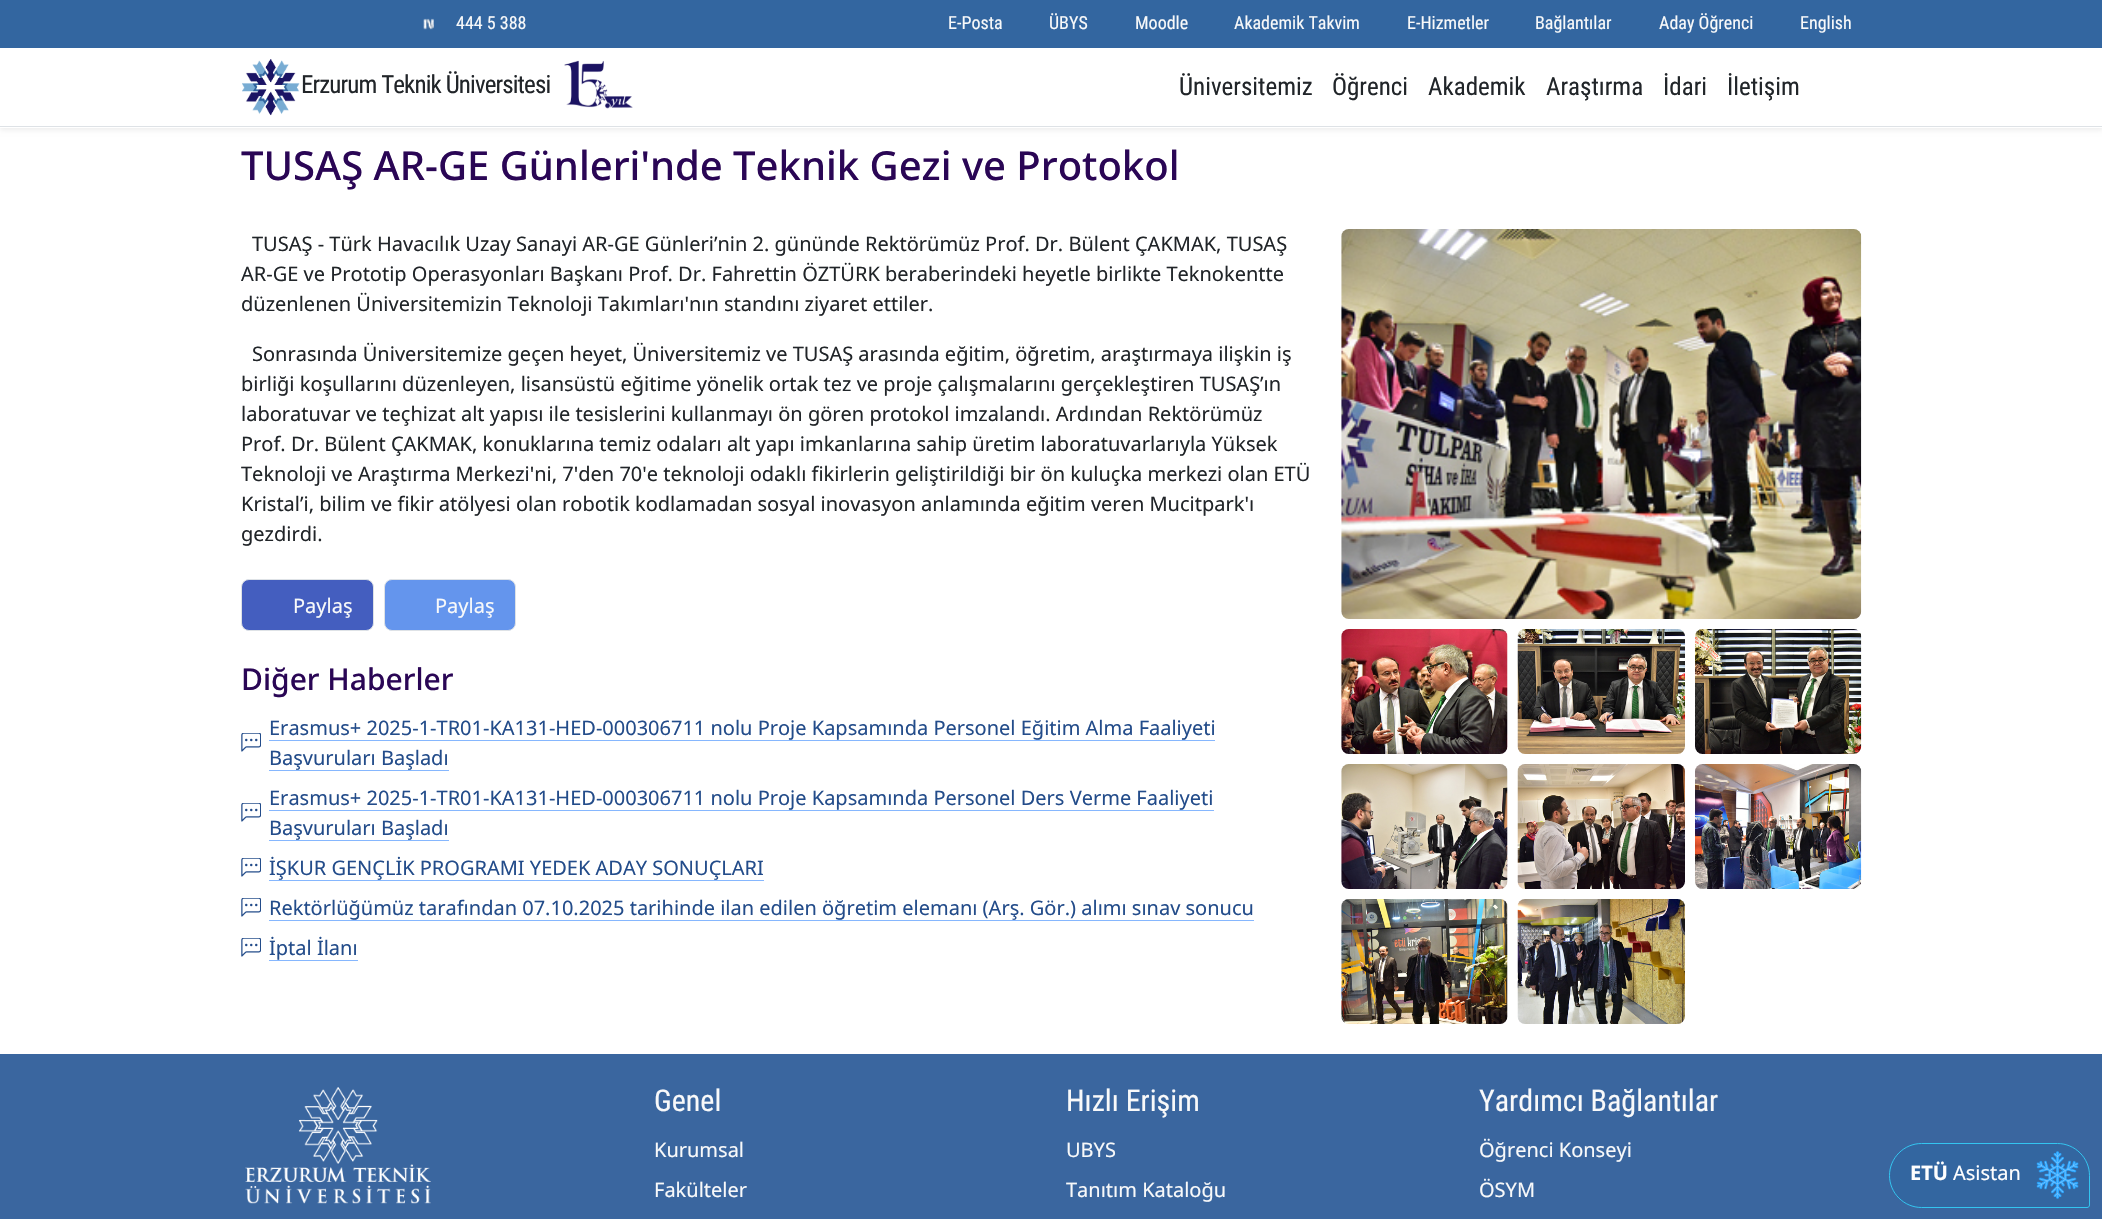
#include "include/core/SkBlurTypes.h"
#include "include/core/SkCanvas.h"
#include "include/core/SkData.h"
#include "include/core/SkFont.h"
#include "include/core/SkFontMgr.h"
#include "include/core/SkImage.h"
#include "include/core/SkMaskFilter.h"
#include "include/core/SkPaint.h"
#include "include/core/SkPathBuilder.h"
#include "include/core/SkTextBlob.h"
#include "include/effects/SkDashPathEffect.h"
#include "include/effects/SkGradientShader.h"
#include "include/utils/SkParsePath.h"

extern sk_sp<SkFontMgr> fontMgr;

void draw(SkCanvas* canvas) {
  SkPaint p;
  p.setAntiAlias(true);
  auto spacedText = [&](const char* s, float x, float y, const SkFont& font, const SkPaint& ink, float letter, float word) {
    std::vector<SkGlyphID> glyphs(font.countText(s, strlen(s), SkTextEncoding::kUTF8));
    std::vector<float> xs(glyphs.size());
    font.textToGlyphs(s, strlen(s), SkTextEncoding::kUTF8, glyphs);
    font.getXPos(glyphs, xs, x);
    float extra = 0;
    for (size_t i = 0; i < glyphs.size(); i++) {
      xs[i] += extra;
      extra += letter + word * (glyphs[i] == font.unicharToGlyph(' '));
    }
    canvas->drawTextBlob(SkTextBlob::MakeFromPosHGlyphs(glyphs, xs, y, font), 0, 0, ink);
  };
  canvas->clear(SK_ColorWHITE);
  p.setColor(SkColorSetARGB(18, 0, 0, 0));
  p.setMaskFilter(SkMaskFilter::MakeBlur(kNormal_SkBlurStyle, 2.5f));
  canvas->drawRect(SkRect::MakeLTRB(0, 3, 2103, 130), p);
  p.setMaskFilter(nullptr);
  p.setColor(SK_ColorWHITE);
  canvas->drawRect(SkRect::MakeLTRB(0, 48, 2102, 128), p);
  p.setColor(SkColorSetRGB(222, 226, 230));
  canvas->drawRect(SkRect::MakeLTRB(0, 126, 2102, 127), p);
  p.setColor(SkColorSetRGB(51, 102, 160));
  canvas->drawRect(SkRect::MakeLTRB(0, 0, 2102, 48), p);
  canvas->drawImageRect(SkImages::DeferredFromEncodedData(SkData::MakeFromFileName("images/1.png")), SkRect::MakeLTRB(423, 18, 434, 30), SkSamplingOptions());
  canvas->drawImageRect(SkImages::DeferredFromEncodedData(SkData::MakeFromFileName("images/2.png")), SkRect::MakeLTRB(242, 59, 300, 116), SkSamplingOptions());
  canvas->drawImageRect(SkImages::DeferredFromEncodedData(SkData::MakeFromFileName("images/3.png")), SkRect::MakeLTRB(564, 60, 633, 109), SkSamplingOptions());
  p.setColor(SkColorSetRGB(68, 94, 191));
  canvas->drawRoundRect(SkRect::MakeLTRB(241.5f, 579.5f, 373.5f, 630.5f), 7.5f, 7.5f, p);
  p.setStyle(SkPaint::kStroke_Style);
  p.setStrokeWidth(1);
  p.setColor(SkColorSetRGB(222, 226, 230));
  canvas->drawRoundRect(SkRect::MakeLTRB(241.5f, 579.5f, 373.5f, 630.5f), 7.5f, 7.5f, p);
  p.setStyle(SkPaint::kFill_Style);
  p.setColor(SkColorSetRGB(100, 149, 237));
  canvas->drawRoundRect(SkRect::MakeLTRB(384.5f, 579.5f, 515.5f, 630.5f), 7.5f, 7.5f, p);
  p.setStyle(SkPaint::kStroke_Style);
  p.setColor(SkColorSetRGB(222, 226, 230));
  canvas->drawRoundRect(SkRect::MakeLTRB(384.5f, 579.5f, 515.5f, 630.5f), 7.5f, 7.5f, p);
  p.setStyle(SkPaint::kFill_Style);
  p.setColor(SkColorSetRGB(134, 183, 254));
  canvas->drawRect(SkRect::MakeLTRB(269, 740, 1215, 741), p);
  canvas->drawImageRect(SkImages::DeferredFromEncodedData(SkData::MakeFromFileName("images/4.png")), SkRect::MakeLTRB(241, 733, 261, 752), SkSamplingOptions());
  canvas->drawRect(SkRect::MakeLTRB(269, 770, 449, 771), p);
  canvas->drawRect(SkRect::MakeLTRB(269, 810, 1214, 811), p);
  canvas->drawImageRect(SkImages::DeferredFromEncodedData(SkData::MakeFromFileName("images/4.png")), SkRect::MakeLTRB(241, 803, 261, 822), SkSamplingOptions());
  canvas->drawRect(SkRect::MakeLTRB(269, 840, 449, 841), p);
  canvas->drawImageRect(SkImages::DeferredFromEncodedData(SkData::MakeFromFileName("images/4.png")), SkRect::MakeLTRB(241, 858, 261, 877), SkSamplingOptions());
  canvas->drawRect(SkRect::MakeLTRB(269, 880, 764, 881), p);
  canvas->drawImageRect(SkImages::DeferredFromEncodedData(SkData::MakeFromFileName("images/4.png")), SkRect::MakeLTRB(241, 898, 261, 917), SkSamplingOptions());
  canvas->drawRect(SkRect::MakeLTRB(269, 920, 1254, 921), p);
  canvas->drawImageRect(SkImages::DeferredFromEncodedData(SkData::MakeFromFileName("images/4.png")), SkRect::MakeLTRB(241, 938, 261, 957), SkSamplingOptions());
  canvas->drawRect(SkRect::MakeLTRB(269, 960, 358, 961), p);
  canvas->drawImageRect(SkImages::DeferredFromEncodedData(SkData::MakeFromFileName("images/5.png")), SkRect::MakeLTRB(1341, 229, 1862, 619), SkSamplingOptions());
  canvas->drawImageRect(SkImages::DeferredFromEncodedData(SkData::MakeFromFileName("images/6.png")), SkRect::MakeLTRB(1341, 629, 1508, 754), SkSamplingOptions());
  canvas->drawImageRect(SkImages::DeferredFromEncodedData(SkData::MakeFromFileName("images/7.png")), SkRect::MakeLTRB(1517, 629, 1685, 754), SkSamplingOptions());
  canvas->drawImageRect(SkImages::DeferredFromEncodedData(SkData::MakeFromFileName("images/8.png")), SkRect::MakeLTRB(1695, 629, 1862, 754), SkSamplingOptions());
  canvas->drawImageRect(SkImages::DeferredFromEncodedData(SkData::MakeFromFileName("images/9.png")), SkRect::MakeLTRB(1341, 764, 1508, 889), SkSamplingOptions());
  canvas->drawImageRect(SkImages::DeferredFromEncodedData(SkData::MakeFromFileName("images/10.png")), SkRect::MakeLTRB(1517, 764, 1685, 889), SkSamplingOptions());
  canvas->drawImageRect(SkImages::DeferredFromEncodedData(SkData::MakeFromFileName("images/11.png")), SkRect::MakeLTRB(1695, 764, 1862, 889), SkSamplingOptions());
  canvas->drawImageRect(SkImages::DeferredFromEncodedData(SkData::MakeFromFileName("images/12.png")), SkRect::MakeLTRB(1341, 899, 1508, 1024), SkSamplingOptions());
  canvas->drawImageRect(SkImages::DeferredFromEncodedData(SkData::MakeFromFileName("images/13.png")), SkRect::MakeLTRB(1517, 899, 1685, 1024), SkSamplingOptions());
  p.setColor(SkColorSetRGB(58, 102, 159));
  canvas->drawRect(SkRect::MakeLTRB(0, 1054, 2102, 1219), p);
  canvas->drawImageRect(SkImages::DeferredFromEncodedData(SkData::MakeFromFileName("images/14.png")), SkRect::MakeLTRB(245, 1087, 431, 1204), SkSamplingOptions());
  p.setColor(SkColorSetRGB(51, 102, 160));
  canvas->drawPath(SkPathBuilder().moveTo(1921.5f, 1143.5f).lineTo(2057.5f, 1143.5f).cubicTo(2075, 1143.5f, 2089.5f, 1158, 2089.5f, 1175.5f).lineTo(2089.5f, 1205).cubicTo(2089.5f, 1206.5f, 2088.5f, 1207.5f, 2087, 1207.5f).lineTo(1921.5f, 1207.5f).cubicTo(1904, 1207.5f, 1889.5f, 1193, 1889.5f, 1175.5f).cubicTo(1889.5f, 1158, 1904, 1143.5f, 1921.5f, 1143.5f).close().detach(), p);
  p.setStyle(SkPaint::kStroke_Style);
  p.setColor(SkColorSetRGB(51, 197, 240));
  canvas->drawPath(SkPathBuilder().moveTo(1921.5f, 1143.5f).lineTo(2057.5f, 1143.5f).cubicTo(2075, 1143.5f, 2089.5f, 1158, 2089.5f, 1175.5f).lineTo(2089.5f, 1205).cubicTo(2089.5f, 1206.5f, 2088.5f, 1207.5f, 2087, 1207.5f).lineTo(1921.5f, 1207.5f).cubicTo(1904, 1207.5f, 1889.5f, 1193, 1889.5f, 1175.5f).cubicTo(1889.5f, 1158, 1904, 1143.5f, 1921.5f, 1143.5f).close().detach(), p);
  canvas->drawImageRect(SkImages::DeferredFromEncodedData(SkData::MakeFromFileName("images/15.png")), SkRect::MakeLTRB(2036, 1151, 2079, 1199), SkSamplingOptions());
  SkFont font1(fontMgr->matchFamilyStyle("Roboto Condensed", SkFontStyle::Normal()), 18);
  font1.setSubpixel(true);
  p.setStyle(SkPaint::kFill_Style);
  p.setColor(SkColorSetRGB(248, 249, 250));
  canvas->drawString("444 5 388", 456, 29, font1, p);
  canvas->drawString("E-Posta", 948, 29, font1, p);
  canvas->drawString("ÜBYS", 1049, 29, font1, p);
  canvas->drawString("Moodle", 1135, 29, font1, p);
  canvas->drawString("Akademik Takvim", 1234, 29, font1, p);
  canvas->drawString("E-Hizmetler", 1407, 29, font1, p);
  canvas->drawString("Bağlantılar", 1535, 29, font1, p);
  canvas->drawString("Aday Öğrenci", 1659, 29, font1, p);
  canvas->drawString("English", 1800, 29, font1, p);
  SkFont font2(fontMgr->matchFamilyStyle("Roboto Condensed", SkFontStyle::Normal()), 25);
  font2.setSubpixel(true);
  p.setColor(SkColorSetRGB(33, 37, 41));
  spacedText("Erzurum Teknik Üniversitesi", 301, 93, font2, p, -0.9f, 0);
  canvas->drawString("Üniversitemiz", 1179, 95, font2, p);
  canvas->drawString("Öğrenci", 1332, 95, font2, p);
  canvas->drawString("Akademik", 1428, 95, font2, p);
  canvas->drawString("Araştırma", 1546, 95, font2, p);
  canvas->drawString("İdari", 1663, 95, font2, p);
  canvas->drawString("İletişim", 1727, 95, font2, p);
  SkFont font3(fontMgr->matchFamilyStyle("Noto Sans", SkFontStyle(500, SkFontStyle::kNormal_Width, SkFontStyle::kUpright_Slant)), 40);
  font3.setSubpixel(true);
  p.setColor(SkColorSetRGB(42, 6, 85));
  canvas->drawString("TUSAŞ AR-GE Günleri'nde Teknik Gezi ve Protokol", 241, 180, font3, p);
  SkFont font4(fontMgr->matchFamilyStyle("Noto Sans", SkFontStyle::Normal()), 20);
  font4.setSubpixel(true);
  p.setColor(SkColorSetRGB(33, 37, 41));
  canvas->drawString("TUSAŞ - Türk Havacılık Uzay Sanayi AR-GE Günleri’nin 2. gününde Rektörümüz Prof. Dr. Bülent ÇAKMAK, TUSAŞ", 252, 251, font4, p);
  canvas->drawString("AR-GE ve Prototip Operasyonları Başkanı Prof. Dr. Fahrettin ÖZTÜRK beraberindeki heyetle birlikte Teknokentte", 241, 281, font4, p);
  canvas->drawString("düzenlenen Üniversitemizin Teknoloji Takımları'nın standını ziyaret ettiler.", 241, 311, font4, p);
  canvas->drawString("Sonrasında Üniversitemize geçen heyet, Üniversitemiz ve TUSAŞ arasında eğitim, öğretim, araştırmaya ilişkin iş", 252, 361, font4, p);
  canvas->drawString("birliği koşullarını düzenleyen, lisansüstü eğitime yönelik ortak tez ve proje çalışmalarını gerçekleştiren TUSAŞ’ın", 241, 391, font4, p);
  canvas->drawString("laboratuvar ve teçhizat alt yapısı ile tesislerini kullanmayı ön gören protokol imzalandı. Ardından Rektörümüz", 241, 421, font4, p);
  canvas->drawString("Prof. Dr. Bülent ÇAKMAK, konuklarına temiz odaları alt yapı imkanlarına sahip üretim laboratuvarlarıyla Yüksek", 241, 451, font4, p);
  canvas->drawString("Teknoloji ve Araştırma Merkezi'ni, 7'den 70'e teknoloji odaklı fikirlerin geliştirildiği bir ön kuluçka merkezi olan ETÜ", 241, 481, font4, p);
  canvas->drawString("Kristal’i, bilim ve fikir atölyesi olan robotik kodlamadan sosyal inovasyon anlamında eğitim veren Mucitpark'ı", 241, 511, font4, p);
  canvas->drawString("gezdirdi.", 241, 541, font4, p);
  p.setColor(SkColorSetRGB(248, 249, 250));
  canvas->drawString("Paylaş", 293, 613, font4, p);
  canvas->drawString("Paylaş", 435, 613, font4, p);
  SkFont font5(fontMgr->matchFamilyStyle("Noto Sans", SkFontStyle(500, SkFontStyle::kNormal_Width, SkFontStyle::kUpright_Slant)), 30);
  font5.setSubpixel(true);
  p.setColor(SkColorSetRGB(42, 6, 85));
  canvas->drawString("Diğer Haberler", 241, 690, font5, p);
  p.setColor(SkColorSetRGB(35, 76, 138));
  canvas->drawString("Erasmus+ 2025-1-TR01-KA131-HED-000306711 nolu Proje Kapsamında Personel Eğitim Alma Faaliyeti", 269, 735, font4, p);
  canvas->drawString("Başvuruları Başladı", 269, 765, font4, p);
  canvas->drawString("Erasmus+ 2025-1-TR01-KA131-HED-000306711 nolu Proje Kapsamında Personel Ders Verme Faaliyeti", 269, 805, font4, p);
  canvas->drawString("Başvuruları Başladı", 269, 835, font4, p);
  canvas->drawString("İŞKUR GENÇLİK PROGRAMI YEDEK ADAY SONUÇLARI", 269, 875, font4, p);
  canvas->drawString("Rektörlüğümüz tarafından 07.10.2025 tarihinde ilan edilen öğretim elemanı (Arş. Gör.) alımı sınav sonucu", 269, 915, font4, p);
  canvas->drawString("İptal İlanı", 269, 955, font4, p);
  SkFont font6(fontMgr->matchFamilyStyle("Roboto Condensed", SkFontStyle::Normal()), 30);
  font6.setSubpixel(true);
  p.setColor(SkColorSetRGB(248, 249, 250));
  canvas->drawString("Genel", 654, 1111, font6, p);
  canvas->drawString("Kurumsal", 654, 1157, font4, p);
  canvas->drawString("Fakülteler", 654, 1197, font4, p);
  canvas->drawString("Hızlı Erişim", 1066, 1111, font6, p);
  canvas->drawString("UBYS", 1066, 1157, font4, p);
  canvas->drawString("Tanıtım Kataloğu", 1066, 1197, font4, p);
  canvas->drawString("Yardımcı Bağlantılar", 1479, 1111, font6, p);
  canvas->drawString("Öğrenci Konseyi", 1479, 1157, font4, p);
  canvas->drawString("ÖSYM", 1479, 1197, font4, p);
  SkFont font7(fontMgr->matchFamilyStyle("Noto Sans", SkFontStyle::Bold()), 20);
  font7.setSubpixel(true);
  p.setColor(SK_ColorWHITE);
  canvas->drawString("ETÜ", 1910, 1180, font7, p);
  canvas->drawString("Asistan", 1953, 1180, font4, p);
}
